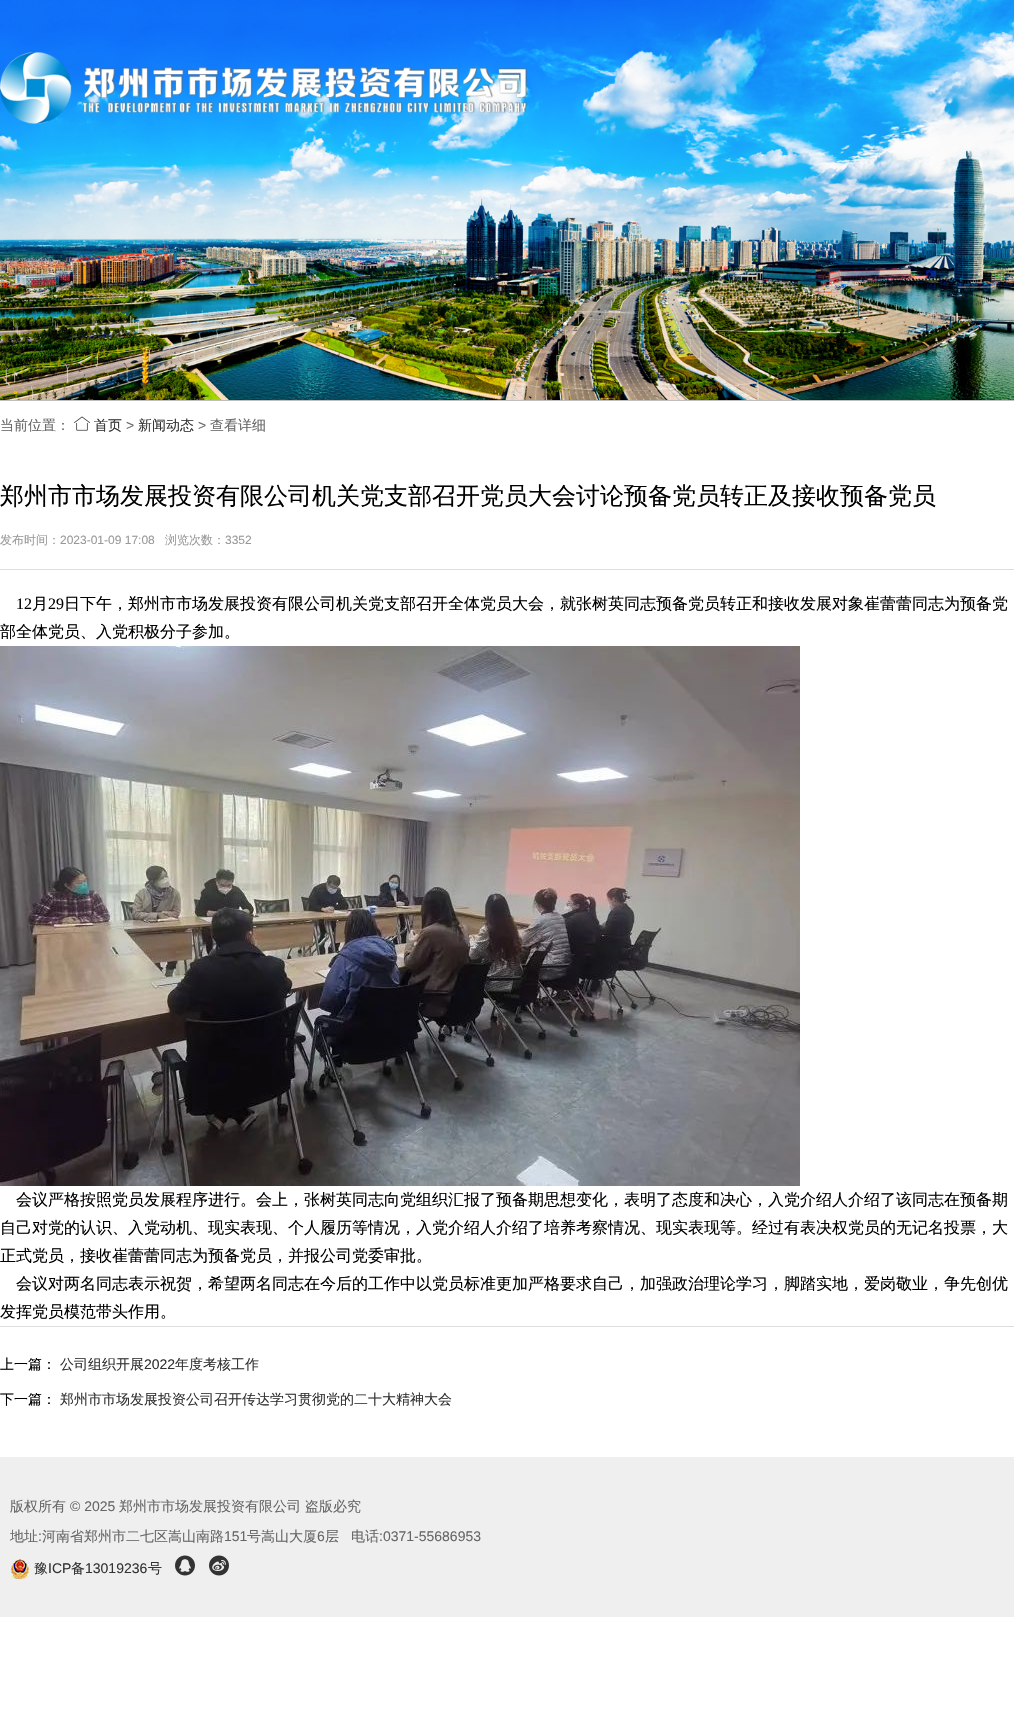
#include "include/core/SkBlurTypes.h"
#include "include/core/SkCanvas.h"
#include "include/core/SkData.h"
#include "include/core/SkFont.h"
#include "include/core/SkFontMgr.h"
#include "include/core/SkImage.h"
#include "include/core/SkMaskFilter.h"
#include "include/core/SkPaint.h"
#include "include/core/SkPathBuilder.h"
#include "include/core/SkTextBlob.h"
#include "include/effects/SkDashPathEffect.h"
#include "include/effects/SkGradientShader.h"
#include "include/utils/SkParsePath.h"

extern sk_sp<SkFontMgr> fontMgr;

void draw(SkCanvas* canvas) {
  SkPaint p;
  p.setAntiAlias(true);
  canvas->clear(SK_ColorWHITE);
  p.setColor(SkColorSetRGB(191, 191, 191));
  canvas->drawRect(SkRect::MakeLTRB(0, 400, 1014, 401), p);
  canvas->drawImageRect(SkImages::DeferredFromEncodedData(SkData::MakeFromFileName("images/1.png")), SkRect::MakeLTRB(0, 0, 1014, 400), SkSamplingOptions());
  canvas->drawImageRect(SkImages::DeferredFromEncodedData(SkData::MakeFromFileName("images/2.png")), SkRect::MakeLTRB(0, 52, 528, 124), SkSamplingOptions());
  canvas->drawImageRect(SkImages::DeferredFromEncodedData(SkData::MakeFromFileName("images/3.png")), SkRect::MakeLTRB(74, 416, 90, 431), SkSamplingOptions());
  p.setColor(SkColorSetRGB(221, 221, 221));
  canvas->drawRect(SkRect::MakeLTRB(0, 569, 1014, 570), p);
  canvas->drawImageRect(SkImages::DeferredFromEncodedData(SkData::MakeFromFileName("images/4.png")), SkRect::MakeLTRB(0, 646, 800, 1186), SkSamplingOptions());
  canvas->drawRect(SkRect::MakeLTRB(0, 1326, 1014, 1327), p);
  p.setColor(SkColorSetRGB(239, 239, 239));
  canvas->drawRect(SkRect::MakeLTRB(0, 1457, 1014, 1617), p);
  canvas->drawImageRect(SkImages::DeferredFromEncodedData(SkData::MakeFromFileName("images/5.png")), SkRect::MakeLTRB(11, 1559, 29, 1579), SkSamplingOptions());
  canvas->drawImageRect(SkImages::DeferredFromEncodedData(SkData::MakeFromFileName("images/6.png")), SkRect::MakeLTRB(175, 1555, 195, 1576), SkSamplingOptions());
  canvas->drawImageRect(SkImages::DeferredFromEncodedData(SkData::MakeFromFileName("images/7.png")), SkRect::MakeLTRB(209, 1555, 229, 1576), SkSamplingOptions());
  SkFont font1(fontMgr->matchFamilyStyle("WenQuanYi Zen Hei", SkFontStyle(500, SkFontStyle::kNormal_Width, SkFontStyle::kUpright_Slant)), 14);
  font1.setSubpixel(true);
  p.setColor(SkColorSetRGB(102, 102, 102));
  canvas->drawString("当前位置：", 0, 430, font1, p);
  p.setColor(SkColorSetRGB(51, 51, 51));
  canvas->drawString("首页", 94, 430, font1, p);
  SkFont font2(fontMgr->matchFamilyStyle("Liberation Sans", SkFontStyle::Normal()), 14);
  font2.setSubpixel(true);
  p.setColor(SkColorSetRGB(102, 102, 102));
  canvas->drawString(">", 126, 430, font2, p);
  p.setColor(SkColorSetRGB(51, 51, 51));
  canvas->drawString("新闻动态", 138, 430, font1, p);
  p.setColor(SkColorSetRGB(102, 102, 102));
  canvas->drawString(">", 198, 430, font2, p);
  canvas->drawString("查看详细", 210, 430, font1, p);
  SkFont font3(fontMgr->matchFamilyStyle("WenQuanYi Zen Hei", SkFontStyle(500, SkFontStyle::kNormal_Width, SkFontStyle::kUpright_Slant)), 24);
  font3.setSubpixel(true);
  p.setColor(SK_ColorBLACK);
  canvas->drawString("郑州市市场发展投资有限公司机关党支部召开党员大会讨论预备党员转正及接收预备党员", 0, 504, font3, p);
  SkFont font4(fontMgr->matchFamilyStyle("WenQuanYi Zen Hei", SkFontStyle(500, SkFontStyle::kNormal_Width, SkFontStyle::kUpright_Slant)), 12);
  font4.setSubpixel(true);
  p.setColor(SkColorSetRGB(153, 153, 153));
  canvas->drawString("发布时间：", 0, 544, font4, p);
  SkFont font5(fontMgr->matchFamilyStyle("Liberation Sans", SkFontStyle::Normal()), 12);
  font5.setSubpixel(true);
  canvas->drawString("2023-01-09 17:08", 60, 544, font5, p);
  canvas->drawString("浏览次数：", 165, 544, font4, p);
  canvas->drawString("3352", 225, 544, font5, p);
  SkFont font6(fontMgr->matchFamilyStyle("Liberation Serif", SkFontStyle::Normal()), 16);
  font6.setSubpixel(true);
  p.setColor(SK_ColorBLACK);
  canvas->drawString("12", 16, 609, font6, p);
  SkFont font7(fontMgr->matchFamilyStyle("WenQuanYi Zen Hei", SkFontStyle(500, SkFontStyle::kNormal_Width, SkFontStyle::kUpright_Slant)), 16);
  font7.setSubpixel(true);
  canvas->drawString("月", 32, 609, font7, p);
  canvas->drawString("29", 48, 609, font6, p);
  canvas->drawString("日下午，郑州市市场发展投资有限公司机关党支部召开全体党员大会，就张树英同志预备党员转正和接收发展对象崔蕾蕾同志为预备党", 64, 609, font7, p);
  canvas->drawString("部全体党员、入党积极分子参加。", 0, 637, font7, p);
  canvas->drawString("会议严格按照党员发展程序进行。会上，张树英同志向党组织汇报了预备期思想变化，表明了态度和决心，入党介绍人介绍了该同志在预备期", 16, 1205, font7, p);
  canvas->drawString("自己对党的认识、入党动机、现实表现、个人履历等情况，入党介绍人介绍了培养考察情况、现实表现等。经过有表决权党员的无记名投票，大", 0, 1233, font7, p);
  canvas->drawString("正式党员，接收崔蕾蕾同志为预备党员，并报公司党委审批。", 0, 1261, font7, p);
  canvas->drawString("会议对两名同志表示祝贺，希望两名同志在今后的工作中以党员标准更加严格要求自己，加强政治理论学习，脚踏实地，爱岗敬业，争先创优", 16, 1289, font7, p);
  canvas->drawString("发挥党员模范带头作用。", 0, 1317, font7, p);
  canvas->drawString("上一篇：", 0, 1369, font1, p);
  p.setColor(SkColorSetRGB(51, 51, 51));
  canvas->drawString("公司组织开展", 60, 1369, font1, p);
  canvas->drawString("2022", 144, 1369, font2, p);
  canvas->drawString("年度考核工作", 175, 1369, font1, p);
  p.setColor(SK_ColorBLACK);
  canvas->drawString("下一篇：", 0, 1404, font1, p);
  p.setColor(SkColorSetRGB(51, 51, 51));
  canvas->drawString("郑州市市场发展投资公司召开传达学习贯彻党的二十大精神大会", 60, 1404, font1, p);
  p.setColor(SkColorSetRGB(102, 102, 102));
  canvas->drawString("版权所有", 10, 1511, font1, p);
  canvas->drawString("© 2025", 70, 1511, font2, p);
  canvas->drawString("郑州市市场发展投资有限公司", 119, 1511, font1, p);
  canvas->drawString("盗版必究", 305, 1511, font1, p);
  canvas->drawString("地址", 10, 1541, font1, p);
  canvas->drawString(":", 38, 1541, font2, p);
  canvas->drawString("河南省郑州市二七区嵩山南路", 42, 1541, font1, p);
  canvas->drawString("151", 224, 1541, font2, p);
  canvas->drawString("号嵩山大厦", 247, 1541, font1, p);
  canvas->drawString("6", 317, 1541, font2, p);
  canvas->drawString("层", 325, 1541, font1, p);
  canvas->drawString("电话", 351, 1541, font1, p);
  canvas->drawString(":0371-55686953", 379, 1541, font2, p);
  p.setColor(SkColorSetRGB(51, 51, 51));
  canvas->drawString("豫", 34, 1573, font1, p);
  canvas->drawString("ICP", 48, 1573, font2, p);
  canvas->drawString("备", 71, 1573, font1, p);
  canvas->drawString("13019236", 85, 1573, font2, p);
  canvas->drawString("号", 148, 1573, font1, p);
}
